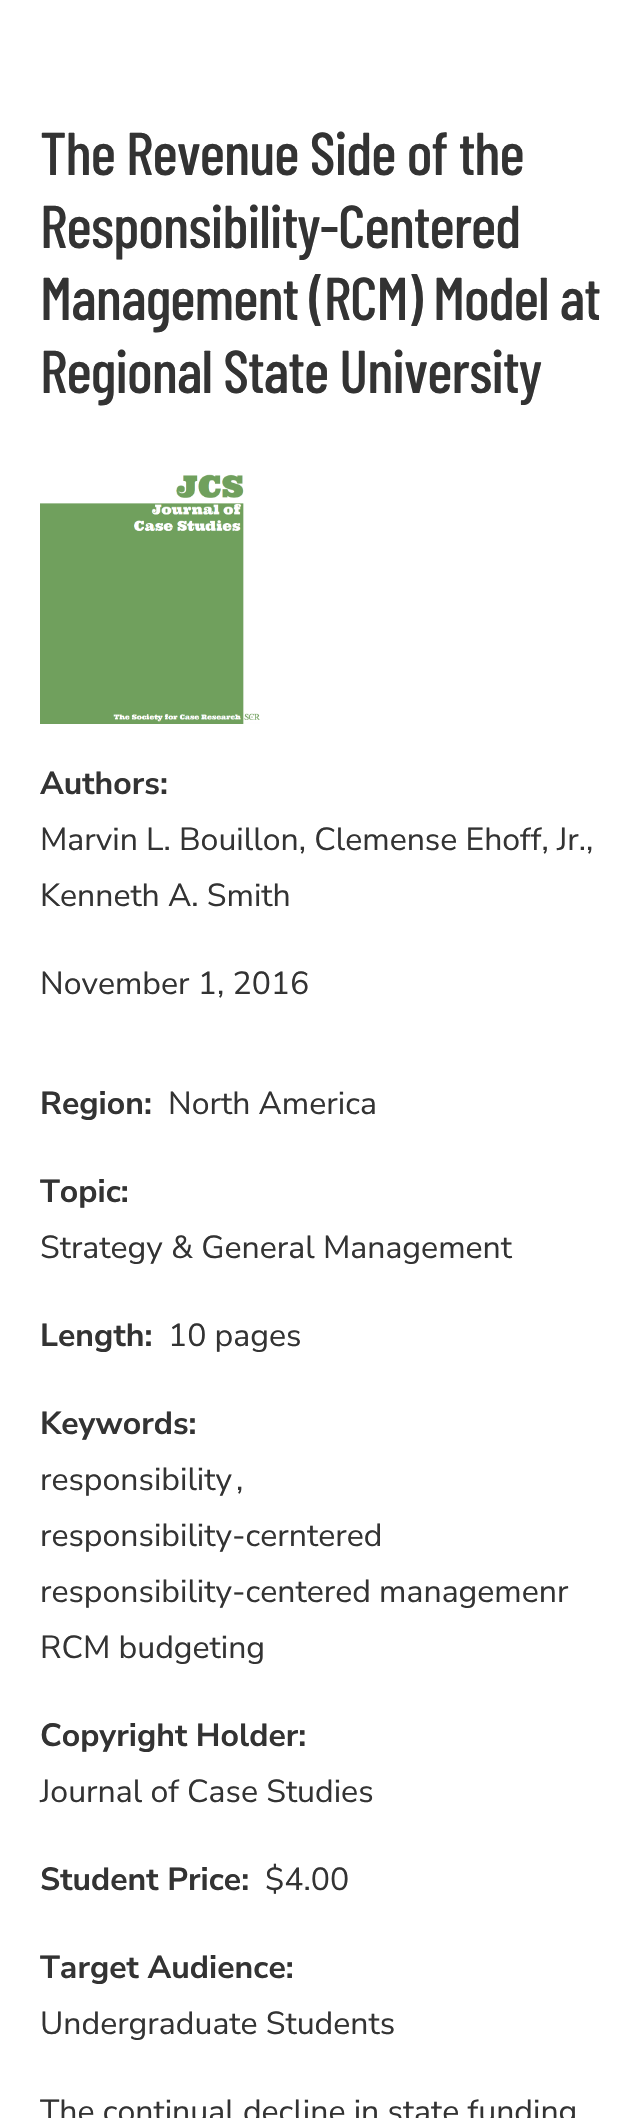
#include "include/core/SkBlurTypes.h"
#include "include/core/SkCanvas.h"
#include "include/core/SkData.h"
#include "include/core/SkFont.h"
#include "include/core/SkFontMgr.h"
#include "include/core/SkImage.h"
#include "include/core/SkMaskFilter.h"
#include "include/core/SkPaint.h"
#include "include/core/SkPathBuilder.h"
#include "include/core/SkTextBlob.h"
#include "include/effects/SkDashPathEffect.h"
#include "include/effects/SkGradientShader.h"
#include "include/utils/SkParsePath.h"

extern sk_sp<SkFontMgr> fontMgr;

void draw(SkCanvas* canvas) {
  SkPaint p;
  p.setAntiAlias(true);
  auto spacedText = [&](const char* s, float x, float y, const SkFont& font, const SkPaint& ink, float letter, float word) {
    std::vector<SkGlyphID> glyphs(font.countText(s, strlen(s), SkTextEncoding::kUTF8));
    std::vector<float> xs(glyphs.size());
    font.textToGlyphs(s, strlen(s), SkTextEncoding::kUTF8, glyphs);
    font.getXPos(glyphs, xs, x);
    float extra = 0;
    for (size_t i = 0; i < glyphs.size(); i++) {
      xs[i] += extra;
      extra += letter + word * (glyphs[i] == font.unicharToGlyph(' '));
    }
    canvas->drawTextBlob(SkTextBlob::MakeFromPosHGlyphs(glyphs, xs, y, font), 0, 0, ink);
  };
  canvas->clear(SK_ColorWHITE);
  canvas->drawImageRect(SkImages::DeferredFromEncodedData(SkData::MakeFromFileName("images/1.png")), SkRect::MakeLTRB(40, 474, 260, 724), SkSamplingOptions());
  SkFont font1(fontMgr->matchFamilyStyle("Barlow Condensed", SkFontStyle(500, SkFontStyle::kNormal_Width, SkFontStyle::kUpright_Slant)), 60.5f);
  font1.setSubpixel(true);
  p.setColor(SkColorSetRGB(51, 51, 51));
  spacedText("The Revenue Side of the", 40, 175, font1, p, -1, 0);
  spacedText("Responsibility-Centered", 40, 248, font1, p, -1, 0);
  spacedText("Management (RCM) Model at", 40, 320, font1, p, -1, 0);
  spacedText("Regional State University", 40, 393, font1, p, -1, 0);
  SkFont font2(fontMgr->matchFamilyStyle("Nunito Sans", SkFontStyle::Bold()), 32);
  font2.setSubpixel(true);
  canvas->drawString("Authors:", 40, 794, font2, p);
  SkFont font3(fontMgr->matchFamilyStyle("Nunito Sans", SkFontStyle::Normal()), 32);
  font3.setSubpixel(true);
  canvas->drawString("Marvin L. Bouillon, Clemense Ehoff, Jr.,", 40, 850, font3, p);
  canvas->drawString("Kenneth A. Smith", 40, 906, font3, p);
  canvas->drawString("November 1, 2016", 40, 994, font3, p);
  canvas->drawString("Region:", 40, 1114, font2, p);
  canvas->drawString("North America", 168, 1114, font3, p);
  canvas->drawString("Topic:", 40, 1202, font2, p);
  canvas->drawString("Strategy & General Management", 40, 1258, font3, p);
  canvas->drawString("Length:", 40, 1346, font2, p);
  canvas->drawString("10 pages", 168, 1346, font3, p);
  canvas->drawString("Keywords:", 40, 1434, font2, p);
  canvas->drawString("responsibility", 40, 1490, font3, p);
  canvas->drawString(",", 236, 1490, font3, p);
  canvas->drawString("responsibility-cerntered", 40, 1546, font3, p);
  canvas->drawString("responsibility-centered managemenr", 40, 1602, font3, p);
  canvas->drawString("RCM budgeting", 40, 1658, font3, p);
  canvas->drawString("Copyright Holder:", 40, 1746, font2, p);
  canvas->drawString("Journal of Case Studies", 40, 1802, font3, p);
  canvas->drawString("Student Price:", 40, 1890, font2, p);
  canvas->drawString("$4.00", 265, 1890, font3, p);
  canvas->drawString("Target Audience:", 40, 1978, font2, p);
  canvas->drawString("Undergraduate Students", 40, 2034, font3, p);
  canvas->drawString("The continual decline in state funding", 40, 2122, font3, p);
}
